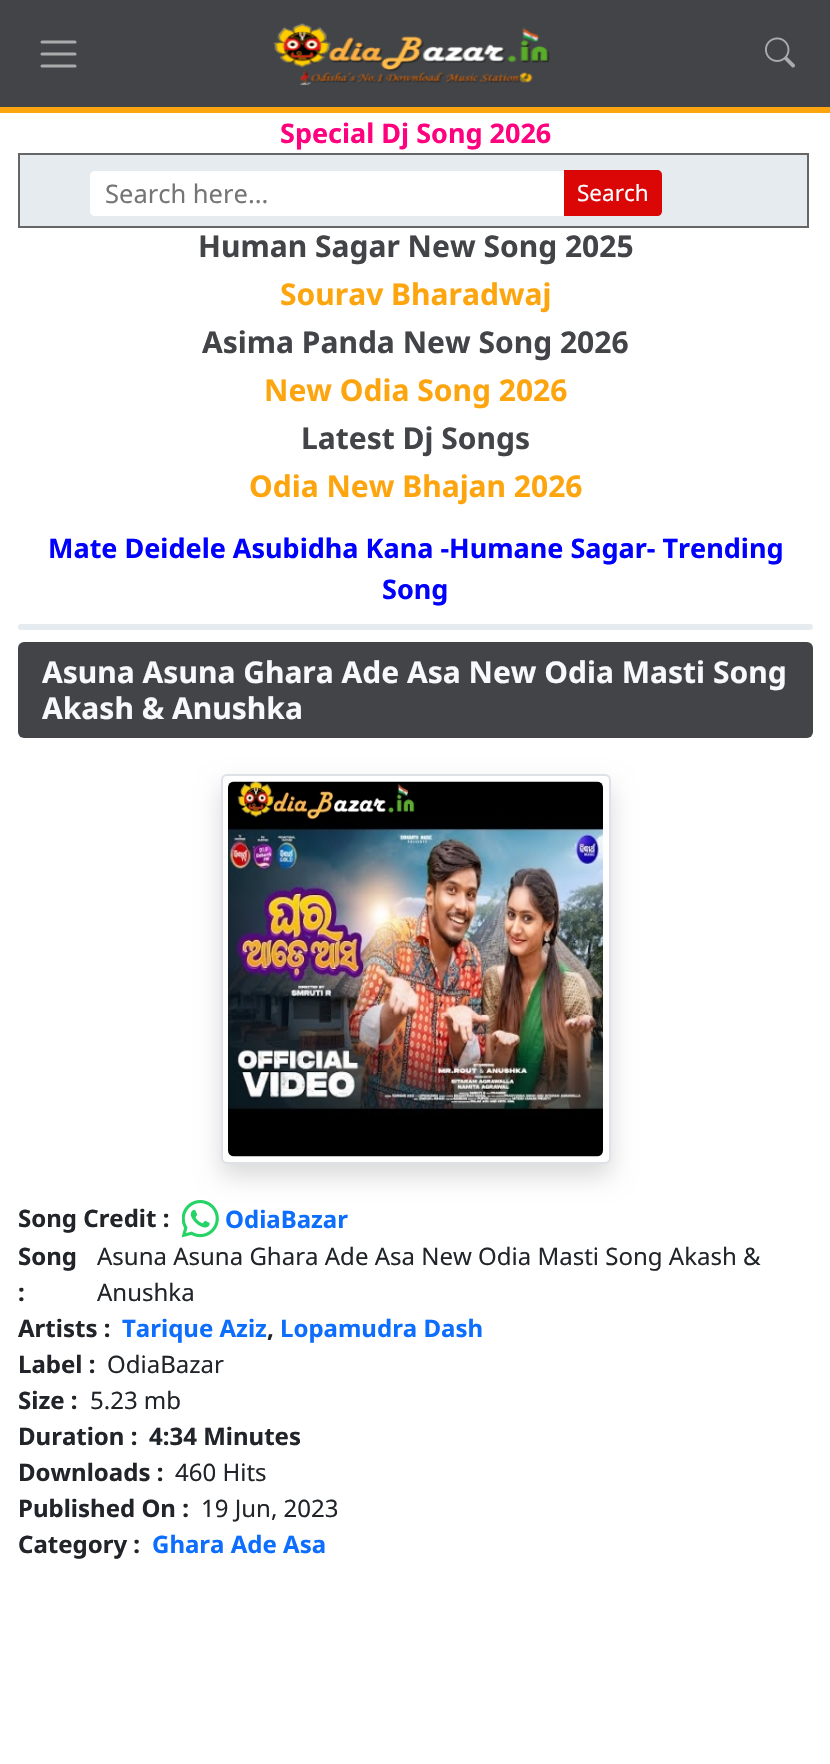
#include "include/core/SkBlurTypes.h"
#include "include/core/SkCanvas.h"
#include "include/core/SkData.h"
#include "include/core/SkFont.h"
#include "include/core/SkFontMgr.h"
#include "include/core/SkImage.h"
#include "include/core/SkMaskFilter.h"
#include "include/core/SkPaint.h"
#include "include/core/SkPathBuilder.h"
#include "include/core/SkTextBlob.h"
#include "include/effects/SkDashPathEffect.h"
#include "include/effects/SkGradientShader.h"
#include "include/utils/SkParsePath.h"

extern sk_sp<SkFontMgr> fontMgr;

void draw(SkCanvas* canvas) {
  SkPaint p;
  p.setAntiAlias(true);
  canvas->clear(SK_ColorWHITE);
  p.setColor(SkColorSetRGB(66, 68, 71));
  canvas->drawRect(SkRect::MakeLTRB(0, 0, 830, 107), p);
  p.setColor(SkColorSetRGB(253, 165, 15));
  canvas->drawRect(SkRect::MakeLTRB(0, 107, 830, 113), p);
  p.setStyle(SkPaint::kStroke_Style);
  p.setStrokeWidth(3);
  p.setStrokeCap(SkPaint::kRound_Cap);
  p.setColor(SkColorSetRGB(170, 171, 172));
  canvas->drawPath(SkPathBuilder().moveTo(42, 42).lineTo(75, 42).moveTo(42, 54).lineTo(75, 54).moveTo(42, 66).lineTo(75, 66).detach(), p);
  canvas->drawImageRect(SkImages::DeferredFromEncodedData(SkData::MakeFromFileName("images/1.png")), SkRect::MakeLTRB(273, 23, 550, 85), SkSamplingOptions());
  canvas->drawImageRect(SkImages::DeferredFromEncodedData(SkData::MakeFromFileName("images/2.png")), SkRect::MakeLTRB(765, 37, 795, 68), SkSamplingOptions());
  p.setStyle(SkPaint::kFill_Style);
  p.setColor(SkColorSetRGB(229, 235, 238));
  canvas->drawRect(SkRect::MakeLTRB(19, 154, 808, 227), p);
  p.setStyle(SkPaint::kStroke_Style);
  p.setStrokeWidth(2);
  p.setStrokeCap(SkPaint::kButt_Cap);
  p.setColor(SkColorSetRGB(102, 102, 102));
  canvas->drawRect(SkRect::MakeLTRB(19, 154, 808, 227), p);
  p.setStyle(SkPaint::kFill_Style);
  p.setColor(SK_ColorWHITE);
  canvas->drawPath(SkPathBuilder().moveTo(95, 171).lineTo(564, 171).lineTo(564, 216).lineTo(95, 216).cubicTo(92, 216, 90, 214, 90, 211).lineTo(90, 176).cubicTo(90, 173, 92, 171, 95, 171).close().detach(), p);
  p.setColor(SkColorSetRGB(219, 7, 7));
  canvas->drawPath(SkPathBuilder().moveTo(564, 170).lineTo(657, 170).cubicTo(660, 170, 662, 172, 662, 175).lineTo(662, 211).cubicTo(662, 214, 660, 216, 657, 216).lineTo(564, 216).close().detach(), p);
  p.setColor(SkColorSetRGB(229, 235, 238));
  canvas->drawRoundRect(SkRect::MakeLTRB(18, 624, 813, 630), 3, 3, p);
  p.setColor(SkColorSetRGB(66, 68, 71));
  canvas->drawRoundRect(SkRect::MakeLTRB(18, 642, 813, 738), 6, 6, p);
  p.setColor(SkColorSetARGB(38, 0, 0, 0));
  p.setMaskFilter(SkMaskFilter::MakeBlur(kNormal_SkBlurStyle, 12));
  canvas->drawRoundRect(SkRect::MakeLTRB(221, 786, 611, 1176), 6, 6, p);
  p.setMaskFilter(nullptr);
  p.setColor(SK_ColorWHITE);
  canvas->drawRoundRect(SkRect::MakeLTRB(222, 775, 610, 1163), 5, 5, p);
  p.setStyle(SkPaint::kStroke_Style);
  p.setColor(SkColorSetRGB(222, 226, 230));
  canvas->drawRoundRect(SkRect::MakeLTRB(222, 775, 610, 1163), 5, 5, p);
  canvas->drawImageRect(SkImages::DeferredFromEncodedData(SkData::MakeFromFileName("images/3.png")), SkRect::MakeLTRB(228, 781, 603, 1157), SkSamplingOptions());
  canvas->drawImageRect(SkImages::DeferredFromEncodedData(SkData::MakeFromFileName("images/4.png")), SkRect::MakeLTRB(182, 1200, 219, 1238), SkSamplingOptions());
  SkFont font1(fontMgr->matchFamilyStyle("Noto Sans", SkFontStyle::Bold()), 27);
  font1.setSubpixel(true);
  p.setStyle(SkPaint::kFill_Style);
  p.setColor(SkColorSetRGB(255, 0, 127));
  canvas->drawString("Special Dj Song 2026", 280, 143, font1, p);
  SkFont font2(fontMgr->matchFamilyStyle("Noto Sans", SkFontStyle::Normal()), 25.5f);
  font2.setSubpixel(true);
  p.setColor(SkColorSetRGB(117, 117, 117));
  canvas->drawString("Search here...", 105, 203, font2, p);
  SkFont font3(fontMgr->matchFamilyStyle("Noto Sans", SkFontStyle::Normal()), 22.5f);
  font3.setSubpixel(true);
  p.setColor(SK_ColorWHITE);
  canvas->drawString("Search", 577, 201, font3, p);
  SkFont font4(fontMgr->matchFamilyStyle("Noto Sans", SkFontStyle::Bold()), 30);
  font4.setSubpixel(true);
  p.setColor(SkColorSetRGB(66, 68, 71));
  canvas->drawString("Human Sagar New Song 2025", 198, 257, font4, p);
  p.setColor(SkColorSetRGB(253, 165, 15));
  canvas->drawString("Sourav Bharadwaj", 280, 305, font4, p);
  p.setColor(SkColorSetRGB(66, 68, 71));
  canvas->drawString("Asima Panda New Song 2026", 202, 353, font4, p);
  p.setColor(SkColorSetRGB(253, 165, 15));
  canvas->drawString("New Odia Song 2026", 264, 401, font4, p);
  p.setColor(SkColorSetRGB(66, 68, 71));
  canvas->drawString("Latest Dj Songs", 301, 449, font4, p);
  p.setColor(SkColorSetRGB(253, 165, 15));
  canvas->drawString("Odia New Bhajan 2026", 249, 497, font4, p);
  p.setColor(SkColorSetRGB(0, 0, 255));
  canvas->drawString("Mate Deidele Asubidha Kana -Humane Sagar- Trending", 48, 558, font1, p);
  canvas->drawString("Song", 382, 599, font1, p);
  p.setColor(SkColorSetRGB(248, 249, 250));
  canvas->drawString("Asuna Asuna Ghara Ade Asa New Odia Masti Song", 42, 683, font4, p);
  canvas->drawString("Akash & Anushka", 42, 719, font4, p);
  SkFont font5(fontMgr->matchFamilyStyle("Noto Sans", SkFontStyle::Bold()), 24);
  font5.setSubpixel(true);
  p.setColor(SkColorSetRGB(33, 37, 41));
  canvas->drawString("Song Credit :", 18, 1227, font5, p);
  p.setColor(SkColorSetRGB(13, 110, 253));
  canvas->drawString("OdiaBazar", 225, 1228, font5, p);
  p.setColor(SkColorSetRGB(33, 37, 41));
  canvas->drawString("Song", 18, 1265, font5, p);
  canvas->drawString(":", 18, 1301, font5, p);
  SkFont font6(fontMgr->matchFamilyStyle("Noto Sans", SkFontStyle::Normal()), 24);
  font6.setSubpixel(true);
  canvas->drawString("Asuna Asuna Ghara Ade Asa New Odia Masti Song Akash &", 97, 1265, font6, p);
  canvas->drawString("Anushka", 97, 1301, font6, p);
  canvas->drawString("Artists :", 18, 1337, font5, p);
  p.setColor(SkColorSetRGB(13, 110, 253));
  canvas->drawString("Tarique Aziz", 122, 1337, font5, p);
  p.setColor(SkColorSetRGB(33, 37, 41));
  canvas->drawString(",", 267, 1337, font5, p);
  p.setColor(SkColorSetRGB(13, 110, 253));
  canvas->drawString("Lopamudra Dash", 280, 1337, font5, p);
  p.setColor(SkColorSetRGB(33, 37, 41));
  canvas->drawString("Label :", 18, 1373, font5, p);
  canvas->drawString("OdiaBazar", 107, 1373, font6, p);
  canvas->drawString("Size :", 18, 1409, font5, p);
  canvas->drawString("5.23 mb", 90, 1409, font6, p);
  canvas->drawString("Duration :", 18, 1445, font5, p);
  canvas->drawString("4:34 Minutes", 149, 1445, font5, p);
  canvas->drawString("Downloads :", 18, 1481, font5, p);
  canvas->drawString("460 Hits", 175, 1481, font6, p);
  canvas->drawString("Published On :", 18, 1517, font5, p);
  canvas->drawString("19 Jun, 2023", 201, 1517, font6, p);
  canvas->drawString("Category :", 18, 1553, font5, p);
  p.setColor(SkColorSetRGB(13, 110, 253));
  canvas->drawString("Ghara Ade Asa", 152, 1553, font5, p);
}
